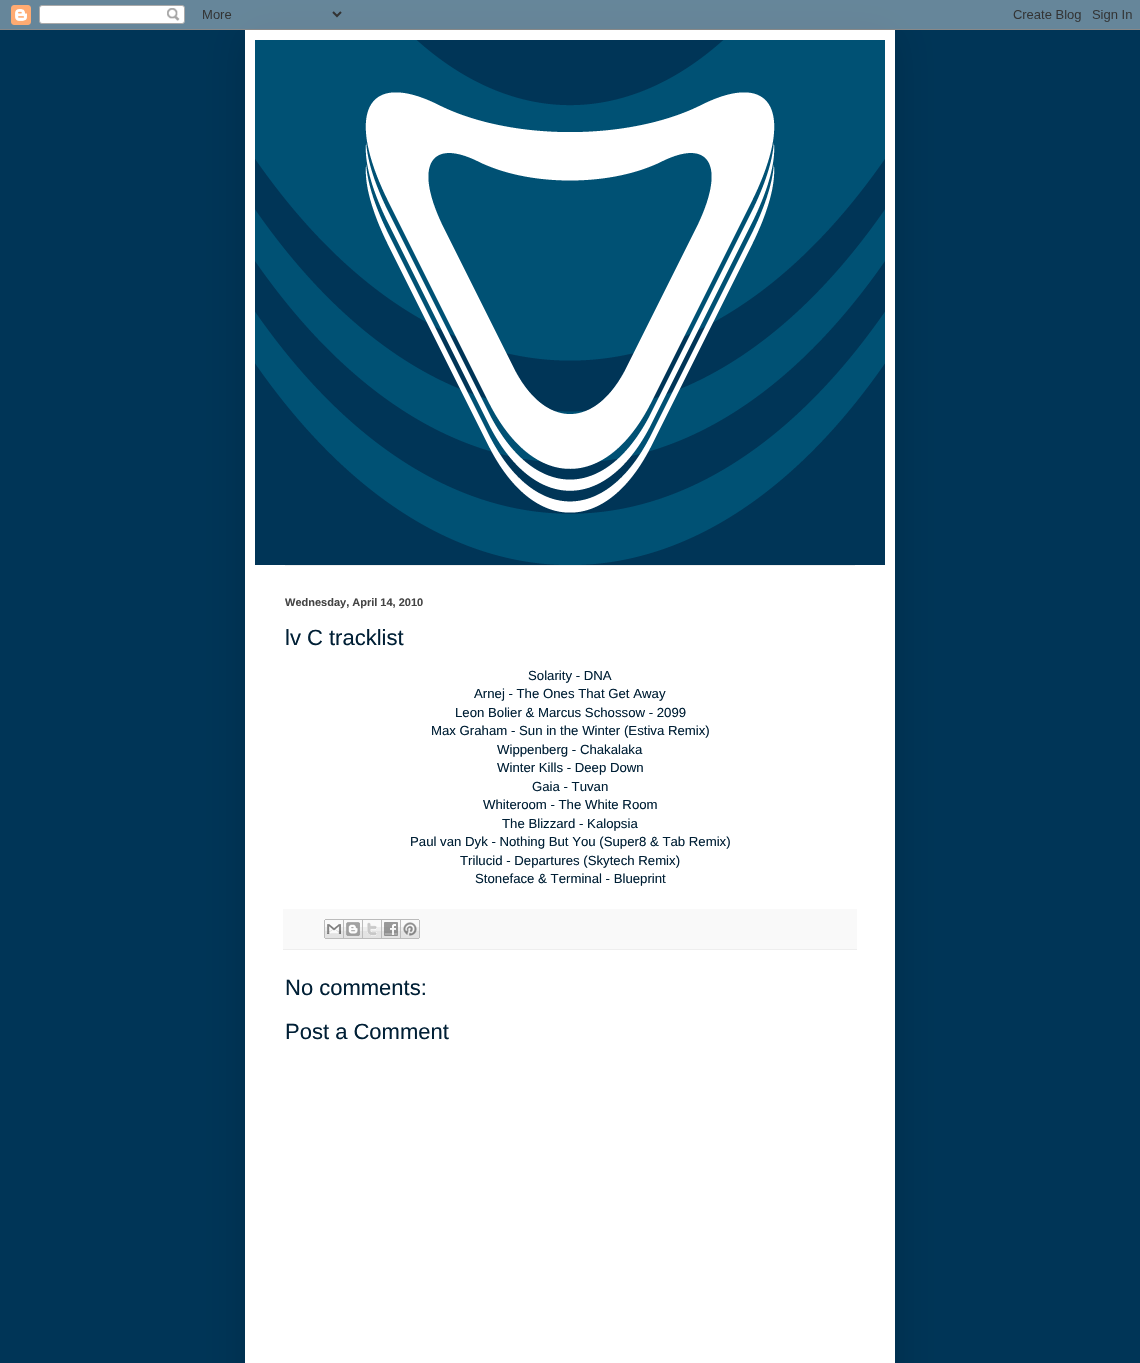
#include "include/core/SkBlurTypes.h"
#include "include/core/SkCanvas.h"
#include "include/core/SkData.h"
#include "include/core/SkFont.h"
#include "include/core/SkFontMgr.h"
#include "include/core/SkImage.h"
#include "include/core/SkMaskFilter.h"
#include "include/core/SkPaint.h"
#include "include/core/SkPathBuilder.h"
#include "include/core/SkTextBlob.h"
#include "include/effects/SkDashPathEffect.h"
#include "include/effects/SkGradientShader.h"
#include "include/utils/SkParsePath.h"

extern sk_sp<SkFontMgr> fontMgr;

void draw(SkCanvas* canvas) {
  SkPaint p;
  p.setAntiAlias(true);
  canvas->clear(SkColorSetRGB(0, 53, 87));
  p.setColor(SkColorSetARGB(38, 0, 0, 0));
  p.setMaskFilter(SkMaskFilter::MakeBlur(kNormal_SkBlurStyle, 20));
  canvas->drawRect(SkRect::MakeLTRB(245, 30, 895, 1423), p);
  p.setMaskFilter(nullptr);
  canvas->drawImageRect(SkImages::DeferredFromEncodedData(SkData::MakeFromFileName("images/1.png")), SkRect::MakeLTRB(0, 0, 1140, 30), SkSamplingOptions());
  p.setColor(SK_ColorWHITE);
  canvas->drawRect(SkRect::MakeLTRB(245, 30, 895, 1363), p);
  canvas->drawImageRect(SkImages::DeferredFromEncodedData(SkData::MakeFromFileName("images/2.png")), SkRect::MakeLTRB(255, 40, 885, 565), SkSamplingOptions());
  p.setColor(SkColorSetRGB(238, 238, 238));
  canvas->drawRect(SkRect::MakeLTRB(285, 565, 855, 566), p);
  p.setColor(SkColorSetRGB(249, 249, 249));
  canvas->drawRect(SkRect::MakeLTRB(283, 909, 857, 949), p);
  p.setColor(SkColorSetRGB(238, 238, 238));
  canvas->drawRect(SkRect::MakeLTRB(283, 949, 857, 950), p);
  canvas->drawImageRect(SkImages::DeferredFromEncodedData(SkData::MakeFromFileName("images/3.png")), SkRect::MakeLTRB(324, 919, 344, 939), SkSamplingOptions());
  canvas->drawImageRect(SkImages::DeferredFromEncodedData(SkData::MakeFromFileName("images/4.png")), SkRect::MakeLTRB(344, 919, 363, 939), SkSamplingOptions());
  canvas->drawImageRect(SkImages::DeferredFromEncodedData(SkData::MakeFromFileName("images/5.png")), SkRect::MakeLTRB(363, 919, 382, 939), SkSamplingOptions());
  canvas->drawImageRect(SkImages::DeferredFromEncodedData(SkData::MakeFromFileName("images/6.png")), SkRect::MakeLTRB(382, 919, 401, 939), SkSamplingOptions());
  canvas->drawImageRect(SkImages::DeferredFromEncodedData(SkData::MakeFromFileName("images/7.png")), SkRect::MakeLTRB(401, 919, 420, 939), SkSamplingOptions());
  SkFont font1(fontMgr->matchFamilyStyle("Liberation Sans", SkFontStyle::Bold()), 11);
  font1.setSubpixel(true);
  p.setColor(SkColorSetRGB(68, 68, 68));
  canvas->drawString("Wednesday, April 14, 2010", 285, 606, font1, p);
  SkFont font2(fontMgr->matchFamilyStyle("Liberation Sans", SkFontStyle::Normal()), 22);
  font2.setSubpixel(true);
  p.setColor(SkColorSetRGB(0, 31, 53));
  canvas->drawString("lv C tracklist", 285, 645, font2, p);
  SkFont font3(fontMgr->matchFamilyStyle("Liberation Sans", SkFontStyle::Normal()), 13.2f);
  font3.setSubpixel(true);
  canvas->drawString("Solarity - DNA", 528, 680, font3, p);
  canvas->drawString("Arnej - The Ones That Get Away", 474, 698, font3, p);
  canvas->drawString("Leon Bolier & Marcus Schossow - 2099", 455, 717, font3, p);
  canvas->drawString("Max Graham - Sun in the Winter (Estiva Remix)", 431, 735, font3, p);
  canvas->drawString("Wippenberg - Chakalaka", 497, 754, font3, p);
  canvas->drawString("Winter Kills - Deep Down", 497, 772, font3, p);
  canvas->drawString("Gaia - Tuvan", 532, 791, font3, p);
  canvas->drawString("Whiteroom - The White Room", 483, 809, font3, p);
  canvas->drawString("The Blizzard - Kalopsia", 502, 828, font3, p);
  canvas->drawString("Paul van Dyk - Nothing But You (Super8 & Tab Remix)", 410, 846, font3, p);
  canvas->drawString("Trilucid - Departures (Skytech Remix)", 460, 865, font3, p);
  canvas->drawString("Stoneface & Terminal - Blueprint", 475, 883, font3, p);
  canvas->drawString("No comments:", 285, 995, font2, p);
  canvas->drawString("Post a Comment", 285, 1039, font2, p);
}
